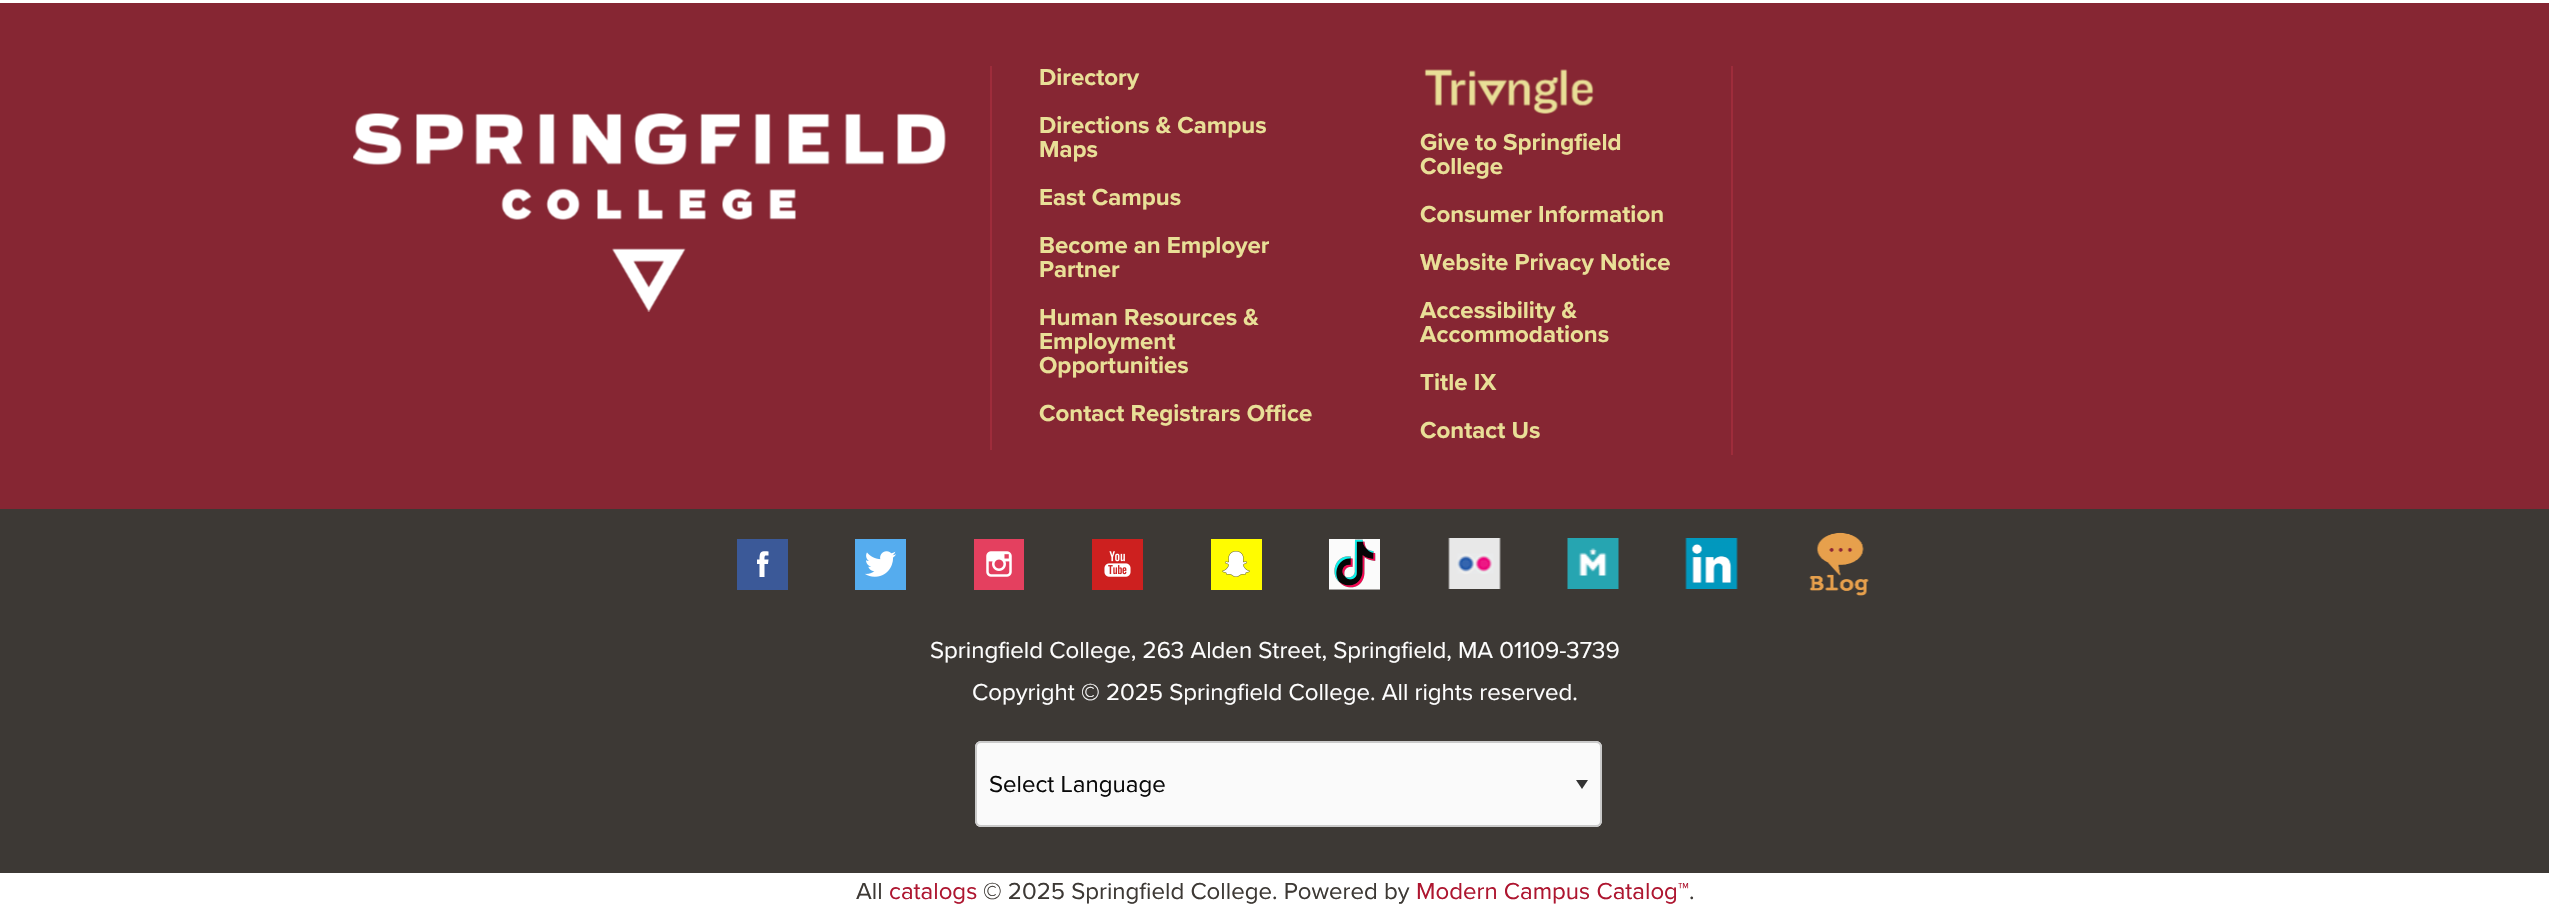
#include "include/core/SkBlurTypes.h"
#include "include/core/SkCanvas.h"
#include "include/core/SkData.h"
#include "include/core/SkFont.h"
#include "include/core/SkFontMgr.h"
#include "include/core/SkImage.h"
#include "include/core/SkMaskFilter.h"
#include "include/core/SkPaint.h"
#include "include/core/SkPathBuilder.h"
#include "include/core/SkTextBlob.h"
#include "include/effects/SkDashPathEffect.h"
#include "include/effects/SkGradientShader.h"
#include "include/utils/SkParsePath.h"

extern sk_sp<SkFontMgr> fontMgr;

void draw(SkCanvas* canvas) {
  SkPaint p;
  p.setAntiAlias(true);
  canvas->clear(SK_ColorWHITE);
  p.setColor(SkColorSetRGB(134, 38, 51));
  canvas->drawRect(SkRect::MakeLTRB(0, 3, 2549, 509), p);
  canvas->drawImageRect(SkImages::DeferredFromEncodedData(SkData::MakeFromFileName("images/1.png")), SkRect::MakeLTRB(353, 113, 946, 312), SkSamplingOptions());
  p.setColor(SkColorSetRGB(158, 44, 59));
  canvas->drawRect(SkRect::MakeLTRB(990, 66, 992, 450), p);
  canvas->drawImageRect(SkImages::DeferredFromEncodedData(SkData::MakeFromFileName("images/2.png")), SkRect::MakeLTRB(1424, 69, 1594, 114), SkSamplingOptions());
  canvas->drawRect(SkRect::MakeLTRB(1731, 66, 1733, 455), p);
  p.setColor(SkColorSetRGB(61, 57, 53));
  canvas->drawRect(SkRect::MakeLTRB(0, 509, 2549, 873), p);
  p.setColor(SkColorSetRGB(59, 89, 152));
  canvas->drawRect(SkRect::MakeLTRB(737, 539, 788, 590), p);
  p.setColor(SK_ColorWHITE);
  canvas->drawPath(SkPathBuilder().moveTo(768.5f, 559.5f).lineTo(764.5f, 559.5f).cubicTo(764.5f, 555, 764.5f, 555.5f, 768.5f, 555.5f).lineTo(768.5f, 551.5f).cubicTo(761, 551, 759.5f, 551.5f, 759.5f, 559.5f).lineTo(757, 559.5f).lineTo(757, 564).lineTo(759.5f, 564).lineTo(759.5f, 577).lineTo(764.5f, 577).lineTo(764.5f, 564).lineTo(768, 564).close().detach(), p);
  canvas->drawImageRect(SkImages::DeferredFromEncodedData(SkData::MakeFromFileName("images/3.png")), SkRect::MakeLTRB(855, 539, 906, 590), SkSamplingOptions());
  canvas->drawImageRect(SkImages::DeferredFromEncodedData(SkData::MakeFromFileName("images/4.png")), SkRect::MakeLTRB(974, 539, 1024, 590), SkSamplingOptions());
  canvas->drawImageRect(SkImages::DeferredFromEncodedData(SkData::MakeFromFileName("images/5.png")), SkRect::MakeLTRB(1092, 539, 1143, 590), SkSamplingOptions());
  canvas->drawImageRect(SkImages::DeferredFromEncodedData(SkData::MakeFromFileName("images/6.png")), SkRect::MakeLTRB(1211, 539, 1262, 590), SkSamplingOptions());
  canvas->drawImageRect(SkImages::DeferredFromEncodedData(SkData::MakeFromFileName("images/7.png")), SkRect::MakeLTRB(1329, 539, 1380, 590), SkSamplingOptions());
  canvas->drawImageRect(SkImages::DeferredFromEncodedData(SkData::MakeFromFileName("images/8.png")), SkRect::MakeLTRB(1448, 538, 1501, 589), SkSamplingOptions());
  canvas->drawImageRect(SkImages::DeferredFromEncodedData(SkData::MakeFromFileName("images/9.png")), SkRect::MakeLTRB(1567, 538, 1619, 589), SkSamplingOptions());
  canvas->drawImageRect(SkImages::DeferredFromEncodedData(SkData::MakeFromFileName("images/10.png")), SkRect::MakeLTRB(1685, 538, 1738, 589), SkSamplingOptions());
  canvas->drawImageRect(SkImages::DeferredFromEncodedData(SkData::MakeFromFileName("images/11.png")), SkRect::MakeLTRB(1809, 532, 1869, 596), SkSamplingOptions());
  p.setColor(SkColorSetRGB(250, 250, 250));
  canvas->drawRoundRect(SkRect::MakeLTRB(975, 741, 1602, 827), 6, 6, p);
  p.setColor(SkColorSetRGB(51, 51, 51));
  canvas->drawPath(SkPathBuilder().moveTo(1576, 780).lineTo(1588, 780).lineTo(1582, 789).close().detach(), p);
  p.setStyle(SkPaint::kStroke_Style);
  p.setStrokeWidth(2);
  p.setColor(SkColorSetRGB(202, 202, 202));
  canvas->drawRoundRect(SkRect::MakeLTRB(976, 742, 1601, 826), 5, 5, p);
  SkFont font1(fontMgr->matchFamilyStyle("Proxima Nova", SkFontStyle::Bold()), 24);
  font1.setSubpixel(true);
  p.setStyle(SkPaint::kFill_Style);
  p.setColor(SkColorSetRGB(233, 223, 151));
  canvas->drawString("Directory", 1039, 85, font1, p);
  canvas->drawString("Directions & Campus", 1039, 133, font1, p);
  canvas->drawString("Maps", 1039, 157, font1, p);
  canvas->drawString("East Campus", 1039, 205, font1, p);
  canvas->drawString("Become an Employer", 1039, 253, font1, p);
  canvas->drawString("Partner", 1039, 277, font1, p);
  canvas->drawString("Human Resources &", 1039, 325, font1, p);
  canvas->drawString("Employment", 1039, 349, font1, p);
  canvas->drawString("Opportunities", 1039, 373, font1, p);
  canvas->drawString("Contact Registrars Office", 1039, 421, font1, p);
  canvas->drawString("Give to Springfield", 1420, 150, font1, p);
  canvas->drawString("College", 1420, 174, font1, p);
  canvas->drawString("Consumer Information", 1420, 222, font1, p);
  canvas->drawString("Website Privacy Notice", 1420, 270, font1, p);
  canvas->drawString("Accessibility &", 1420, 318, font1, p);
  canvas->drawString("Accommodations", 1420, 342, font1, p);
  canvas->drawString("Title IX", 1420, 390, font1, p);
  canvas->drawString("Contact Us", 1420, 438, font1, p);
  SkFont font2(fontMgr->matchFamilyStyle("Proxima Nova", SkFontStyle::Normal()), 24);
  font2.setSubpixel(true);
  p.setColor(SkColorSetRGB(254, 254, 254));
  canvas->drawString("Springfield College, 263 Alden Street, Springfield, MA 01109-3739", 930, 658, font2, p);
  canvas->drawString("Copyright © 2025 Springfield College. All rights reserved.", 972, 700, font2, p);
  p.setColor(SkColorSetRGB(10, 10, 10));
  canvas->drawString("Select Language", 989, 792, font2, p);
  p.setColor(SkColorSetRGB(61, 57, 53));
  canvas->drawString("All", 856, 899, font2, p);
  p.setColor(SkColorSetRGB(174, 22, 48));
  canvas->drawString("catalogs", 889, 899, font2, p);
  p.setColor(SkColorSetRGB(61, 57, 53));
  canvas->drawString("© 2025 Springfield College. Powered by", 983, 899, font2, p);
  p.setColor(SkColorSetRGB(174, 22, 48));
  canvas->drawString("Modern Campus Catalog™", 1416, 899, font2, p);
  p.setColor(SkColorSetRGB(61, 57, 53));
  canvas->drawString(".", 1689, 899, font2, p);
}
